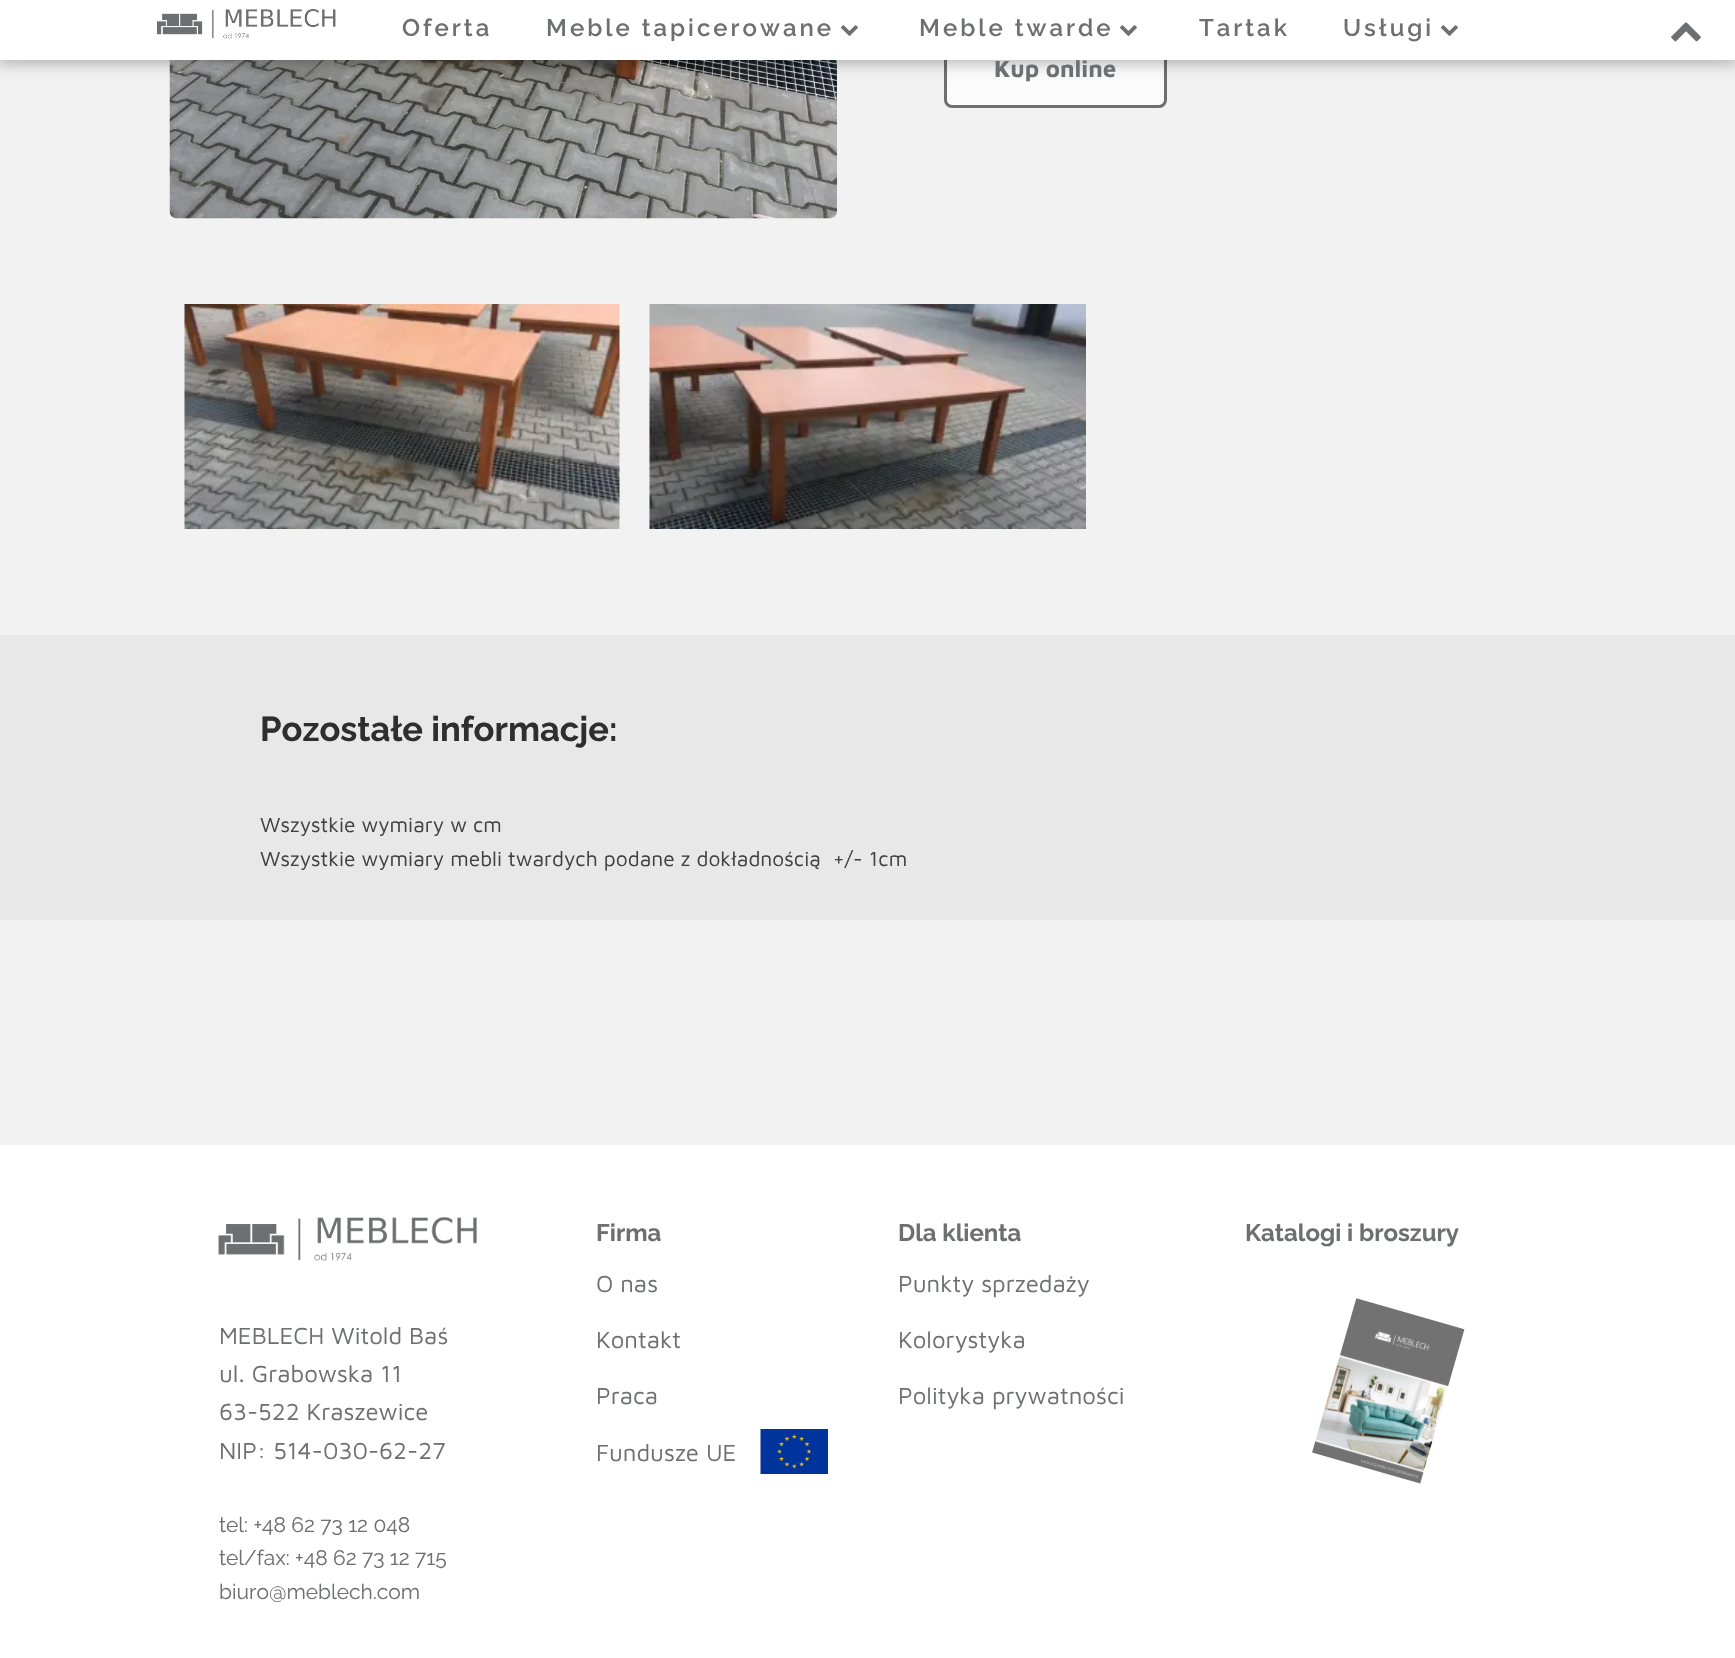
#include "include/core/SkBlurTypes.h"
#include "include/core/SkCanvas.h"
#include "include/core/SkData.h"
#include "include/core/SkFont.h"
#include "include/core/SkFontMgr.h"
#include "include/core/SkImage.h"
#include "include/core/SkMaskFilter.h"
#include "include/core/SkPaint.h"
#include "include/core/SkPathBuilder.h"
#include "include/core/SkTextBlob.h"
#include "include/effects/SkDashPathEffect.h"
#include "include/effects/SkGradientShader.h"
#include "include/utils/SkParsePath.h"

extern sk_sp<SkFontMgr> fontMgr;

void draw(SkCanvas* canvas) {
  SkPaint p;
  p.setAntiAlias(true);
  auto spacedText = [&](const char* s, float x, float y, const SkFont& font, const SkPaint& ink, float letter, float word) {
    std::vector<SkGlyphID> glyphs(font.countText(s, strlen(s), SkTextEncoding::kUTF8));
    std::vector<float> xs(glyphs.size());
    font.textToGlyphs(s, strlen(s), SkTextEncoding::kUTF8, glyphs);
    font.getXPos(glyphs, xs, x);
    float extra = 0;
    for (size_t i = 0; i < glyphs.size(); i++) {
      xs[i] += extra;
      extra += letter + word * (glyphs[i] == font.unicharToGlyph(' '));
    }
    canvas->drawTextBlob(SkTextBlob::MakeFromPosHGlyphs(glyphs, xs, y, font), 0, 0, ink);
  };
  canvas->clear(SK_ColorWHITE);
  p.setColor(SkColorSetRGB(242, 242, 242));
  canvas->drawRect(SkRect::MakeLTRB(0, 60, 1735, 1145), p);
  canvas->drawImageRect(SkImages::DeferredFromEncodedData(SkData::MakeFromFileName("images/4.png")), SkRect::MakeLTRB(169, 60, 837, 219), SkSamplingOptions());
  p.setColor(SkColorSetRGB(252, 252, 252));
  canvas->drawRoundRect(SkRect::MakeLTRB(945.5f, 33.5f, 1165.5f, 106.5f), 6.5f, 6.5f, p);
  p.setStyle(SkPaint::kStroke_Style);
  p.setStrokeWidth(3);
  p.setColor(SkColorSetRGB(110, 111, 112));
  canvas->drawRoundRect(SkRect::MakeLTRB(945.5f, 33.5f, 1165.5f, 106.5f), 6.5f, 6.5f, p);
  p.setStyle(SkPaint::kFill_Style);
  p.setColor(SkColorSetARGB(77, 0, 0, 0));
  p.setMaskFilter(SkMaskFilter::MakeBlur(kNormal_SkBlurStyle, 7.5f));
  canvas->drawRect(SkRect::MakeLTRB(0, 0, 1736, 60), p);
  p.setMaskFilter(nullptr);
  p.setColor(SkColorSetARGB(13, 0, 0, 0));
  p.setMaskFilter(SkMaskFilter::MakeBlur(kNormal_SkBlurStyle, 4.5f));
  canvas->drawRect(SkRect::MakeLTRB(-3, 3, 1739, 69), p);
  p.setMaskFilter(nullptr);
  p.setColor(SK_ColorWHITE);
  canvas->drawRect(SkRect::MakeLTRB(0, 0, 1735, 60), p);
  canvas->drawImageRect(SkImages::DeferredFromEncodedData(SkData::MakeFromFileName("images/1.png")), SkRect::MakeLTRB(156, 9, 336, 39), SkSamplingOptions());
  canvas->drawImageRect(SkImages::DeferredFromEncodedData(SkData::MakeFromFileName("images/2.png")), SkRect::MakeLTRB(841, 25, 858, 36), SkSamplingOptions());
  canvas->drawImageRect(SkImages::DeferredFromEncodedData(SkData::MakeFromFileName("images/2.png")), SkRect::MakeLTRB(1120, 25, 1137, 36), SkSamplingOptions());
  canvas->drawImageRect(SkImages::DeferredFromEncodedData(SkData::MakeFromFileName("images/2.png")), SkRect::MakeLTRB(1441, 25, 1458, 36), SkSamplingOptions());
  canvas->drawImageRect(SkImages::DeferredFromEncodedData(SkData::MakeFromFileName("images/3.png")), SkRect::MakeLTRB(1671, 22, 1701, 42), SkSamplingOptions());
  canvas->drawImageRect(SkImages::DeferredFromEncodedData(SkData::MakeFromFileName("images/5.png")), SkRect::MakeLTRB(184, 304, 620, 529), SkSamplingOptions());
  canvas->drawImageRect(SkImages::DeferredFromEncodedData(SkData::MakeFromFileName("images/6.png")), SkRect::MakeLTRB(649, 304, 1086, 529), SkSamplingOptions());
  p.setColor(SkColorSetRGB(232, 232, 232));
  canvas->drawRect(SkRect::MakeLTRB(0, 635, 1735, 920), p);
  canvas->drawImageRect(SkImages::DeferredFromEncodedData(SkData::MakeFromFileName("images/7.png")), SkRect::MakeLTRB(760, 1429, 828, 1474), SkSamplingOptions());
  canvas->drawImageRect(SkImages::DeferredFromEncodedData(SkData::MakeFromFileName("images/8.png")), SkRect::MakeLTRB(1312, 1298, 1465, 1484), SkSamplingOptions());
  canvas->drawImageRect(SkImages::DeferredFromEncodedData(SkData::MakeFromFileName("images/9.png")), SkRect::MakeLTRB(218, 1217, 477, 1261), SkSamplingOptions());
  SkFont font1(fontMgr->matchFamilyStyle("Raleway", SkFontStyle(600, SkFontStyle::kNormal_Width, SkFontStyle::kUpright_Slant)), 24);
  font1.setSubpixel(true);
  p.setColor(SkColorSetRGB(110, 111, 112));
  spacedText("Oferta", 402, 36, font1, p, 3, 0);
  spacedText("Meble tapicerowane", 546, 36, font1, p, 3, 0);
  spacedText("Meble twarde", 919, 36, font1, p, 3, 0);
  spacedText("Tartak", 1199, 36, font1, p, 3, 0);
  spacedText("Usługi", 1343, 36, font1, p, 3, 0);
  SkFont font2(fontMgr->matchFamilyStyle("Maven Pro", SkFontStyle::Bold()), 24);
  font2.setSubpixel(true);
  canvas->drawString("Kup online", 994, 77, font2, p);
  SkFont font3(fontMgr->matchFamilyStyle("Raleway", SkFontStyle::Bold()), 34.5f);
  font3.setSubpixel(true);
  p.setColor(SkColorSetRGB(46, 46, 46));
  canvas->drawString("Pozostałe informacje:", 260, 741, font3, p);
  SkFont font4(fontMgr->matchFamilyStyle("Maven Pro", SkFontStyle::Normal()), 21);
  font4.setSubpixel(true);
  p.setColor(SkColorSetRGB(64, 64, 64));
  canvas->drawString("Wszystkie wymiary w cm", 260, 832, font4, p);
  canvas->drawString("Wszystkie wymiary mebli twardych podane z dokładnością  +/- 1cm", 260, 866, font4, p);
  SkFont font5(fontMgr->matchFamilyStyle("Raleway", SkFontStyle::Bold()), 24);
  font5.setSubpixel(true);
  p.setColor(SkColorSetRGB(110, 111, 112));
  canvas->drawString("Firma", 596, 1241, font5, p);
  SkFont font6(fontMgr->matchFamilyStyle("Maven Pro", SkFontStyle::Normal()), 24);
  font6.setSubpixel(true);
  canvas->drawString("O nas", 596, 1292, font6, p);
  canvas->drawString("Kontakt", 596, 1348, font6, p);
  canvas->drawString("Praca", 596, 1404, font6, p);
  canvas->drawString("Fundusze UE", 596, 1461, font6, p);
  canvas->drawString("Dla klienta", 898, 1241, font5, p);
  canvas->drawString("Punkty sprzedaży", 898, 1292, font6, p);
  canvas->drawString("Kolorystyka", 898, 1348, font6, p);
  canvas->drawString("Polityka prywatności", 898, 1404, font6, p);
  canvas->drawString("Katalogi i broszury", 1245, 1241, font5, p);
  canvas->drawString("MEBLECH Witold Baś", 219, 1344, font6, p);
  canvas->drawString("ul. Grabowska 11", 219, 1382, font6, p);
  canvas->drawString("63-522 Kraszewice", 219, 1420, font6, p);
  canvas->drawString("NIP: 514-030-62-27", 219, 1459, font6, p);
  SkFont font7(fontMgr->matchFamilyStyle("Raleway", SkFontStyle::Normal()), 21);
  font7.setSubpixel(true);
  canvas->drawString("tel: +48 62 73 12 048", 219, 1532, font7, p);
  canvas->drawString("tel/fax: +48 62 73 12 715", 219, 1565, font7, p);
  canvas->drawString("biuro@meblech.com", 219, 1599, font7, p);
}
